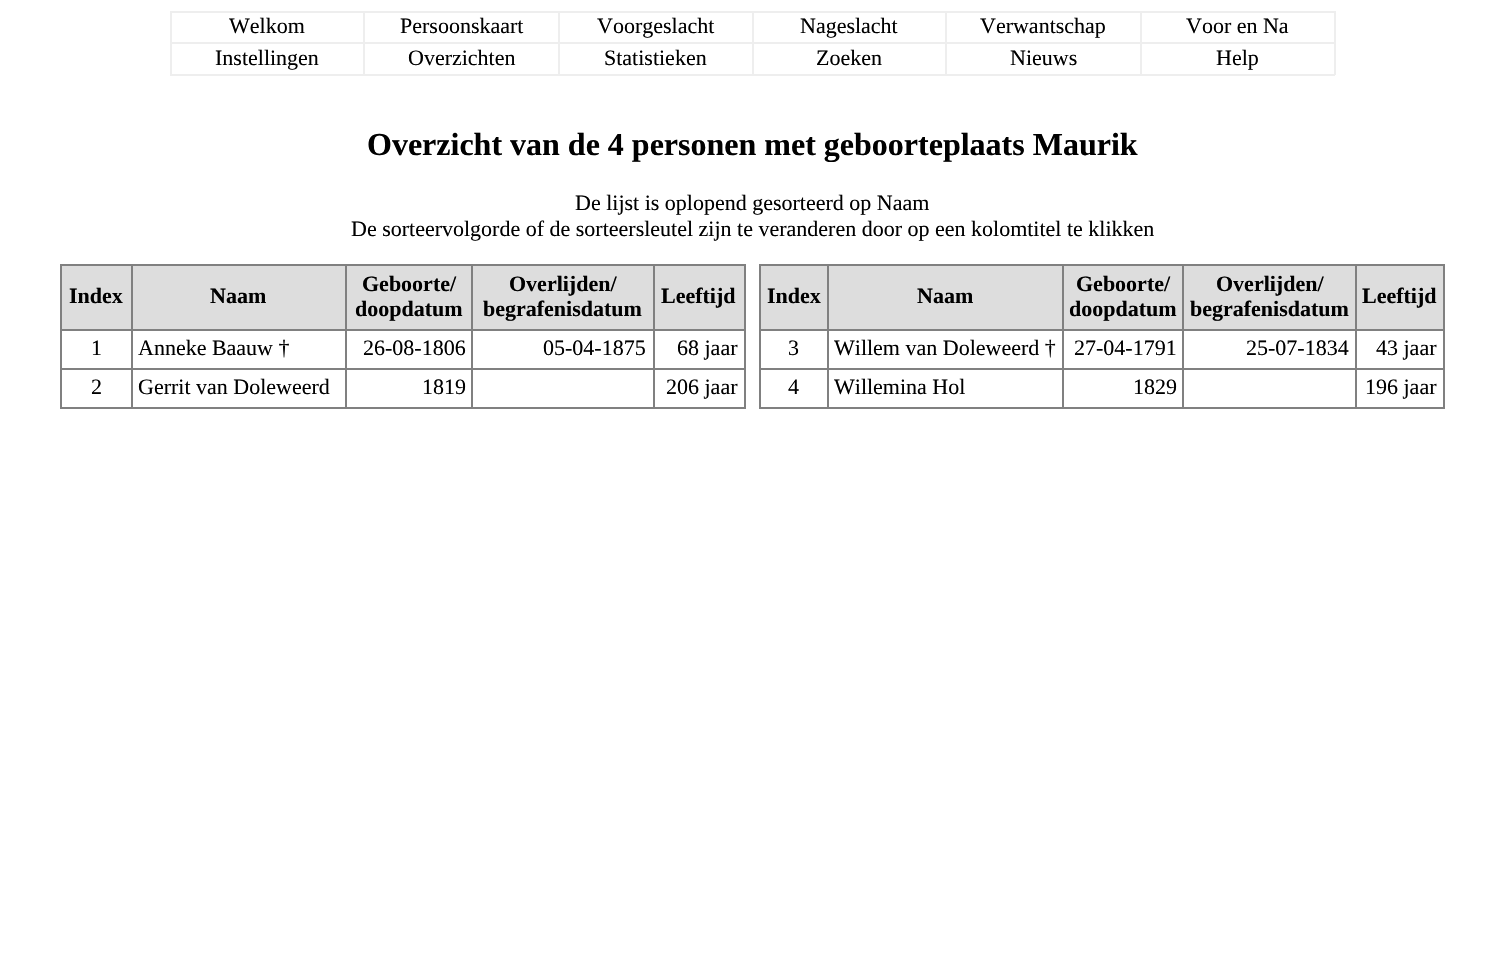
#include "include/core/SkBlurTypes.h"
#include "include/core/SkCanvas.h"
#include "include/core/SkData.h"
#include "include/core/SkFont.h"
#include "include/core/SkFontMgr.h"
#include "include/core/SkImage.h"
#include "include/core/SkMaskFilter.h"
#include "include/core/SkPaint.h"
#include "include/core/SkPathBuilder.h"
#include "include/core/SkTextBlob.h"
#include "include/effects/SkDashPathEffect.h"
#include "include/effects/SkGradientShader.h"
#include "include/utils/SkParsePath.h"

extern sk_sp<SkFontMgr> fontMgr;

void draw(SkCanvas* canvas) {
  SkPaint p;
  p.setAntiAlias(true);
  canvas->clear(SK_ColorWHITE);
  p.setColor(SkColorSetRGB(238, 238, 238));
  canvas->drawRect(SkRect::MakeLTRB(1140, 11, 1335, 13), p);
  canvas->drawRect(SkRect::MakeLTRB(1140, 42, 1335, 44), p);
  canvas->drawRect(SkRect::MakeLTRB(1334, 42, 1336, 75), p);
  canvas->drawRect(SkRect::MakeLTRB(1140, 74, 1335, 76), p);
  canvas->drawRect(SkRect::MakeLTRB(1140, 42, 1142, 75), p);
  canvas->drawRect(SkRect::MakeLTRB(945, 42, 1142, 44), p);
  canvas->drawRect(SkRect::MakeLTRB(1140, 11, 1142, 44), p);
  canvas->drawRect(SkRect::MakeLTRB(945, 11, 1142, 13), p);
  canvas->drawRect(SkRect::MakeLTRB(945, 74, 1142, 76), p);
  canvas->drawRect(SkRect::MakeLTRB(945, 42, 947, 75), p);
  canvas->drawRect(SkRect::MakeLTRB(752, 42, 947, 44), p);
  canvas->drawRect(SkRect::MakeLTRB(945, 11, 947, 44), p);
  canvas->drawRect(SkRect::MakeLTRB(752, 11, 947, 13), p);
  canvas->drawRect(SkRect::MakeLTRB(752, 74, 947, 76), p);
  canvas->drawRect(SkRect::MakeLTRB(752, 42, 754, 75), p);
  canvas->drawRect(SkRect::MakeLTRB(558, 42, 753, 44), p);
  canvas->drawRect(SkRect::MakeLTRB(752, 11, 754, 44), p);
  canvas->drawRect(SkRect::MakeLTRB(558, 11, 753, 13), p);
  canvas->drawRect(SkRect::MakeLTRB(558, 74, 753, 76), p);
  canvas->drawRect(SkRect::MakeLTRB(558, 42, 560, 75), p);
  canvas->drawRect(SkRect::MakeLTRB(363, 42, 560, 44), p);
  canvas->drawRect(SkRect::MakeLTRB(558, 11, 560, 44), p);
  canvas->drawRect(SkRect::MakeLTRB(363, 11, 560, 13), p);
  canvas->drawRect(SkRect::MakeLTRB(363, 74, 560, 76), p);
  canvas->drawRect(SkRect::MakeLTRB(363, 42, 365, 75), p);
  canvas->drawRect(SkRect::MakeLTRB(170, 42, 365, 44), p);
  canvas->drawRect(SkRect::MakeLTRB(363, 11, 365, 44), p);
  canvas->drawRect(SkRect::MakeLTRB(170, 11, 365, 13), p);
  canvas->drawRect(SkRect::MakeLTRB(170, 74, 365, 76), p);
  canvas->drawRect(SkRect::MakeLTRB(170, 42, 172, 75), p);
  canvas->drawRect(SkRect::MakeLTRB(170, 11, 172, 44), p);
  canvas->drawRect(SkRect::MakeLTRB(1334, 11, 1336, 44), p);
  p.setColor(SkColorSetRGB(128, 128, 128));
  canvas->drawRect(SkRect::MakeLTRB(60, 264, 746, 266), p);
  canvas->drawRect(SkRect::MakeLTRB(744, 264, 746, 408), p);
  canvas->drawRect(SkRect::MakeLTRB(60, 407, 746, 409), p);
  canvas->drawRect(SkRect::MakeLTRB(60, 264, 62, 408), p);
  p.setColor(SkColorSetRGB(221, 221, 221));
  canvas->drawRect(SkRect::MakeLTRB(62, 266, 131, 329), p);
  canvas->drawRect(SkRect::MakeLTRB(133, 266, 345, 329), p);
  p.setColor(SkColorSetRGB(128, 128, 128));
  canvas->drawRect(SkRect::MakeLTRB(653, 329, 746, 331), p);
  canvas->drawRect(SkRect::MakeLTRB(653, 368, 746, 370), p);
  canvas->drawRect(SkRect::MakeLTRB(653, 368, 655, 408), p);
  canvas->drawRect(SkRect::MakeLTRB(471, 368, 654, 370), p);
  canvas->drawRect(SkRect::MakeLTRB(653, 329, 655, 369), p);
  canvas->drawRect(SkRect::MakeLTRB(471, 329, 654, 331), p);
  canvas->drawRect(SkRect::MakeLTRB(471, 368, 473, 408), p);
  canvas->drawRect(SkRect::MakeLTRB(345, 368, 473, 370), p);
  canvas->drawRect(SkRect::MakeLTRB(471, 329, 473, 369), p);
  canvas->drawRect(SkRect::MakeLTRB(345, 329, 473, 331), p);
  canvas->drawRect(SkRect::MakeLTRB(345, 368, 347, 408), p);
  canvas->drawRect(SkRect::MakeLTRB(131, 368, 347, 370), p);
  canvas->drawRect(SkRect::MakeLTRB(345, 329, 347, 369), p);
  canvas->drawRect(SkRect::MakeLTRB(131, 329, 347, 331), p);
  canvas->drawRect(SkRect::MakeLTRB(131, 368, 133, 408), p);
  canvas->drawRect(SkRect::MakeLTRB(60, 368, 132, 370), p);
  canvas->drawRect(SkRect::MakeLTRB(131, 329, 133, 369), p);
  canvas->drawRect(SkRect::MakeLTRB(60, 329, 132, 331), p);
  canvas->drawRect(SkRect::MakeLTRB(131, 264, 133, 330), p);
  p.setColor(SkColorSetRGB(221, 221, 221));
  canvas->drawRect(SkRect::MakeLTRB(347, 266, 471, 329), p);
  p.setColor(SkColorSetRGB(128, 128, 128));
  canvas->drawRect(SkRect::MakeLTRB(345, 264, 347, 330), p);
  p.setColor(SkColorSetRGB(221, 221, 221));
  canvas->drawRect(SkRect::MakeLTRB(473, 266, 653, 329), p);
  p.setColor(SkColorSetRGB(128, 128, 128));
  canvas->drawRect(SkRect::MakeLTRB(471, 264, 473, 330), p);
  p.setColor(SkColorSetRGB(221, 221, 221));
  canvas->drawRect(SkRect::MakeLTRB(655, 266, 744, 329), p);
  p.setColor(SkColorSetRGB(128, 128, 128));
  canvas->drawRect(SkRect::MakeLTRB(653, 264, 655, 330), p);
  canvas->drawRect(SkRect::MakeLTRB(759, 264, 1445, 266), p);
  canvas->drawRect(SkRect::MakeLTRB(1443, 264, 1445, 408), p);
  canvas->drawRect(SkRect::MakeLTRB(759, 407, 1445, 409), p);
  canvas->drawRect(SkRect::MakeLTRB(759, 264, 761, 408), p);
  p.setColor(SkColorSetRGB(221, 221, 221));
  canvas->drawRect(SkRect::MakeLTRB(761, 266, 827, 329), p);
  canvas->drawRect(SkRect::MakeLTRB(829, 266, 1062, 329), p);
  p.setColor(SkColorSetRGB(128, 128, 128));
  canvas->drawRect(SkRect::MakeLTRB(1355, 329, 1445, 331), p);
  canvas->drawRect(SkRect::MakeLTRB(1355, 368, 1445, 370), p);
  canvas->drawRect(SkRect::MakeLTRB(1355, 368, 1357, 408), p);
  canvas->drawRect(SkRect::MakeLTRB(1182, 368, 1356, 370), p);
  canvas->drawRect(SkRect::MakeLTRB(1355, 329, 1357, 369), p);
  canvas->drawRect(SkRect::MakeLTRB(1182, 329, 1356, 331), p);
  canvas->drawRect(SkRect::MakeLTRB(1182, 368, 1184, 408), p);
  canvas->drawRect(SkRect::MakeLTRB(1062, 368, 1184, 370), p);
  canvas->drawRect(SkRect::MakeLTRB(1182, 329, 1184, 369), p);
  canvas->drawRect(SkRect::MakeLTRB(1062, 329, 1184, 331), p);
  canvas->drawRect(SkRect::MakeLTRB(1062, 368, 1064, 408), p);
  canvas->drawRect(SkRect::MakeLTRB(827, 368, 1064, 370), p);
  canvas->drawRect(SkRect::MakeLTRB(1062, 329, 1064, 369), p);
  canvas->drawRect(SkRect::MakeLTRB(827, 329, 1064, 331), p);
  canvas->drawRect(SkRect::MakeLTRB(827, 368, 829, 408), p);
  canvas->drawRect(SkRect::MakeLTRB(759, 368, 828, 370), p);
  canvas->drawRect(SkRect::MakeLTRB(827, 329, 829, 369), p);
  canvas->drawRect(SkRect::MakeLTRB(759, 329, 828, 331), p);
  canvas->drawRect(SkRect::MakeLTRB(827, 264, 829, 330), p);
  p.setColor(SkColorSetRGB(221, 221, 221));
  canvas->drawRect(SkRect::MakeLTRB(1064, 266, 1182, 329), p);
  p.setColor(SkColorSetRGB(128, 128, 128));
  canvas->drawRect(SkRect::MakeLTRB(1062, 264, 1064, 330), p);
  p.setColor(SkColorSetRGB(221, 221, 221));
  canvas->drawRect(SkRect::MakeLTRB(1184, 266, 1355, 329), p);
  p.setColor(SkColorSetRGB(128, 128, 128));
  canvas->drawRect(SkRect::MakeLTRB(1182, 264, 1184, 330), p);
  p.setColor(SkColorSetRGB(221, 221, 221));
  canvas->drawRect(SkRect::MakeLTRB(1357, 266, 1443, 329), p);
  p.setColor(SkColorSetRGB(128, 128, 128));
  canvas->drawRect(SkRect::MakeLTRB(1355, 264, 1357, 330), p);
  SkFont font1(fontMgr->matchFamilyStyle("Liberation Serif", SkFontStyle::Normal()), 22);
  font1.setSubpixel(true);
  p.setColor(SK_ColorBLACK);
  canvas->drawString("Welkom", 229, 33, font1, p);
  canvas->drawString("Persoonskaart", 400, 33, font1, p);
  canvas->drawString("Voorgeslacht", 597, 33, font1, p);
  canvas->drawString("Nageslacht", 800, 33, font1, p);
  canvas->drawString("Verwantschap", 980, 33, font1, p);
  canvas->drawString("Voor en Na", 1186, 33, font1, p);
  canvas->drawString("Instellingen", 215, 65, font1, p);
  canvas->drawString("Overzichten", 408, 65, font1, p);
  canvas->drawString("Statistieken", 604, 65, font1, p);
  canvas->drawString("Zoeken", 816, 65, font1, p);
  canvas->drawString("Nieuws", 1010, 65, font1, p);
  canvas->drawString("Help", 1216, 65, font1, p);
  SkFont font2(fontMgr->matchFamilyStyle("Liberation Serif", SkFontStyle::Bold()), 32);
  font2.setSubpixel(true);
  canvas->drawString("Overzicht van de 4 personen met geboorteplaats Maurik", 367, 155, font2, p);
  canvas->drawString("De lijst is oplopend gesorteerd op Naam", 575, 210, font1, p);
  canvas->drawString("De sorteervolgorde of de sorteersleutel zijn te veranderen door op een kolomtitel te klikken", 351, 236, font1, p);
  SkFont font3(fontMgr->matchFamilyStyle("Liberation Serif", SkFontStyle::Bold()), 22);
  font3.setSubpixel(true);
  canvas->drawString("Index", 69, 303, font3, p);
  canvas->drawString("Naam", 210, 303, font3, p);
  canvas->drawString("Geboorte/", 362, 291, font3, p);
  canvas->drawString("doopdatum", 355, 316, font3, p);
  canvas->drawString("Overlijden/", 509, 291, font3, p);
  canvas->drawString("begrafenisdatum", 483, 316, font3, p);
  canvas->drawString("Leeftijd", 661, 303, font3, p);
  canvas->drawString("1", 91, 355, font1, p);
  canvas->drawString("Anneke Baauw †", 138, 355, font1, p);
  canvas->drawString("26-08-1806", 363, 355, font1, p);
  canvas->drawString("05-04-1875", 543, 355, font1, p);
  canvas->drawString("68 jaar", 677, 355, font1, p);
  canvas->drawString("2", 91, 394, font1, p);
  canvas->drawString("Gerrit van Doleweerd", 138, 394, font1, p);
  canvas->drawString("1819", 422, 394, font1, p);
  canvas->drawString("206 jaar", 666, 394, font1, p);
  canvas->drawString("Index", 767, 303, font3, p);
  canvas->drawString("Naam", 917, 303, font3, p);
  canvas->drawString("Geboorte/", 1076, 291, font3, p);
  canvas->drawString("doopdatum", 1069, 316, font3, p);
  canvas->drawString("Overlijden/", 1216, 291, font3, p);
  canvas->drawString("begrafenisdatum", 1190, 316, font3, p);
  canvas->drawString("Leeftijd", 1362, 303, font3, p);
  canvas->drawString("3", 788, 355, font1, p);
  canvas->drawString("Willem van Doleweerd †", 834, 355, font1, p);
  canvas->drawString("27-04-1791", 1074, 355, font1, p);
  canvas->drawString("25-07-1834", 1246, 355, font1, p);
  canvas->drawString("43 jaar", 1376, 355, font1, p);
  canvas->drawString("4", 788, 394, font1, p);
  canvas->drawString("Willemina Hol", 834, 394, font1, p);
  canvas->drawString("1829", 1133, 394, font1, p);
  canvas->drawString("196 jaar", 1365, 394, font1, p);
}
